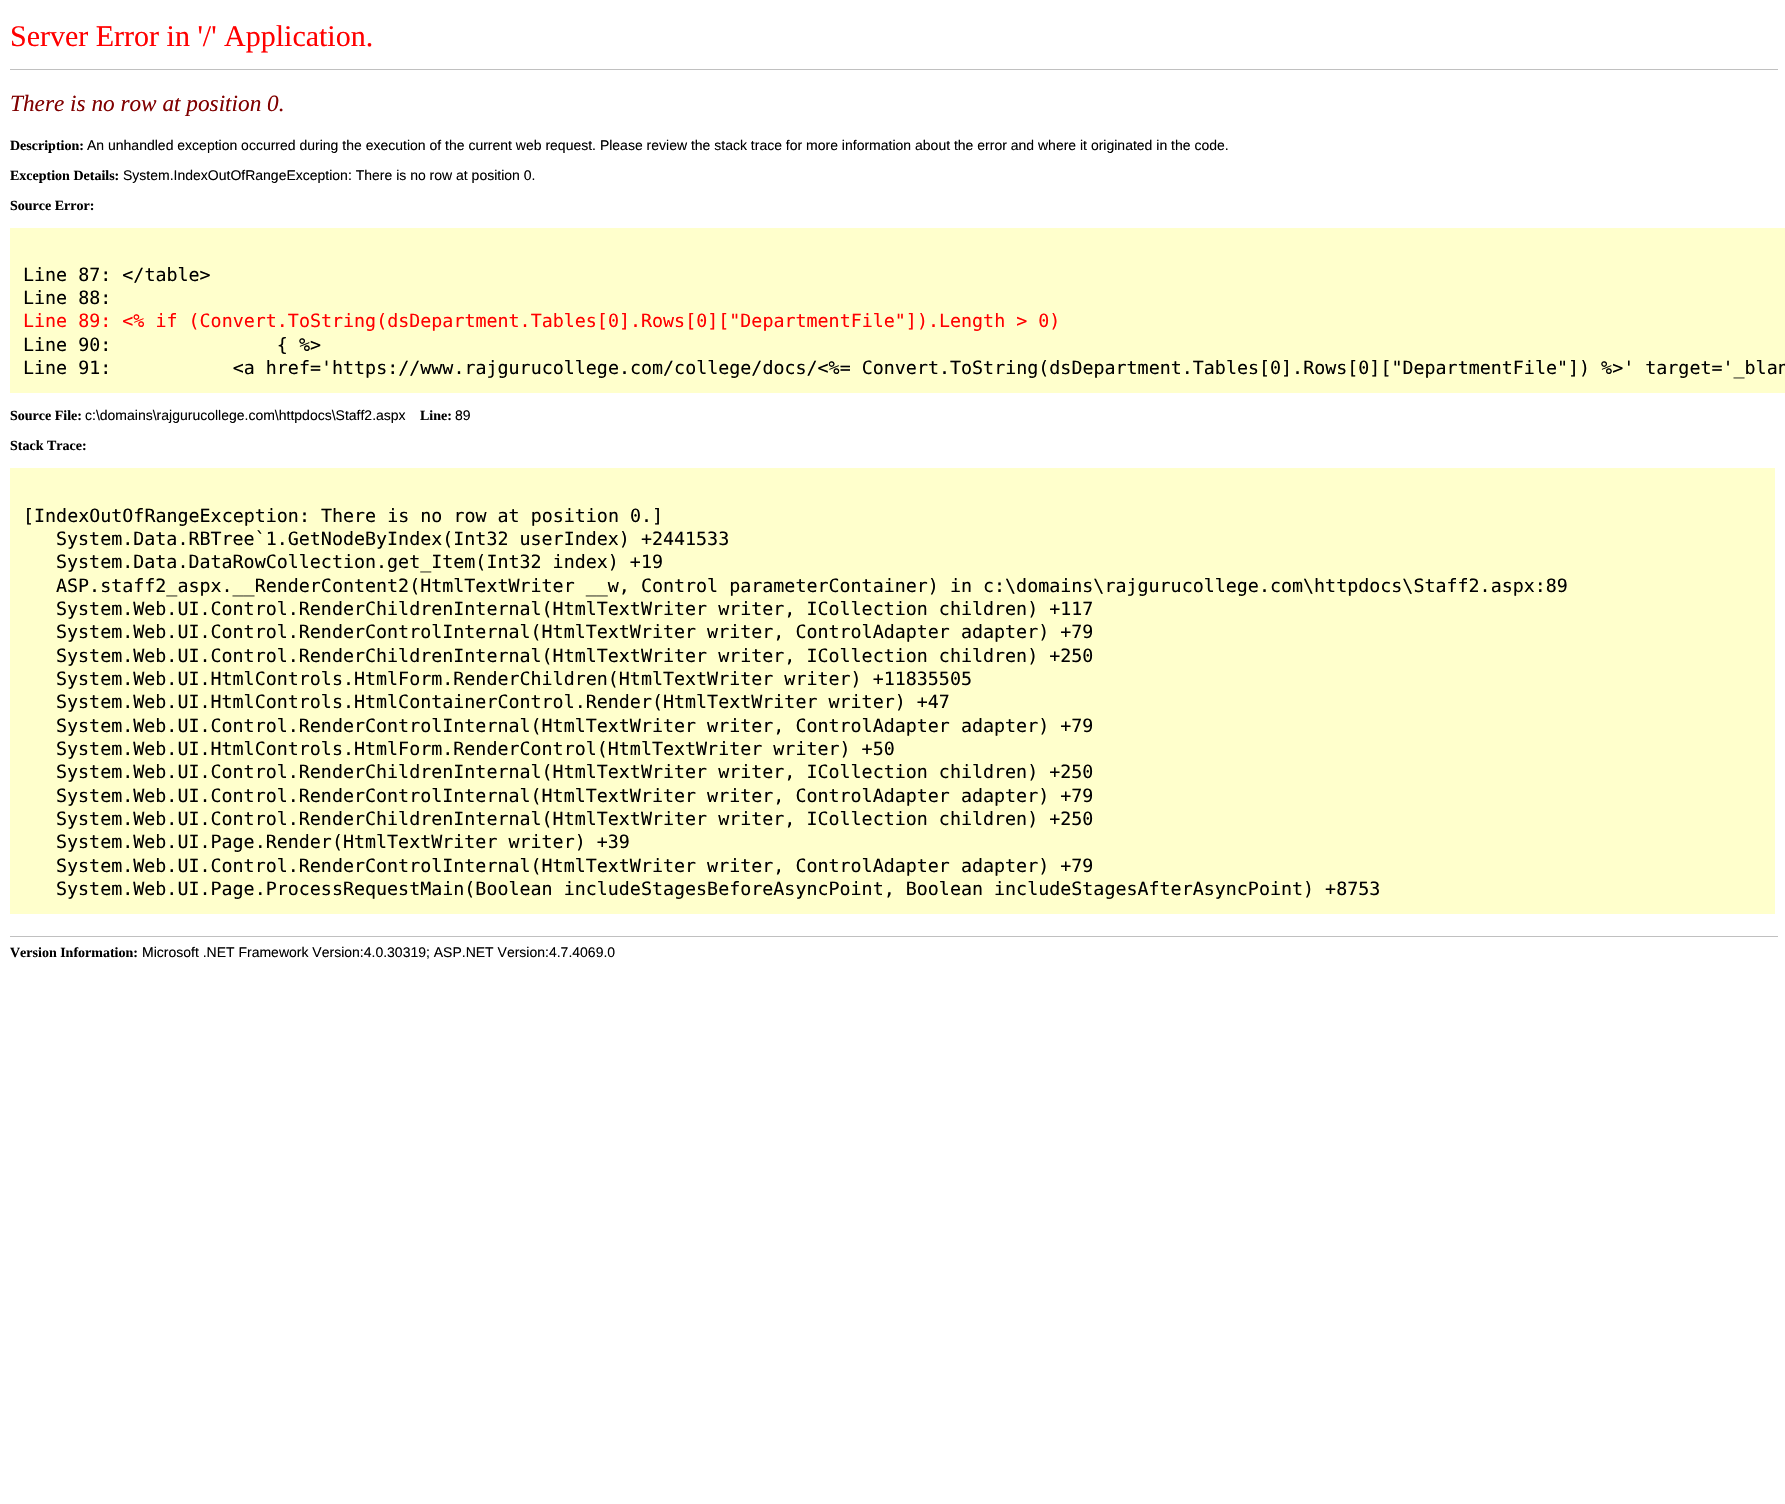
#include "include/core/SkBlurTypes.h"
#include "include/core/SkCanvas.h"
#include "include/core/SkData.h"
#include "include/core/SkFont.h"
#include "include/core/SkFontMgr.h"
#include "include/core/SkImage.h"
#include "include/core/SkMaskFilter.h"
#include "include/core/SkPaint.h"
#include "include/core/SkPathBuilder.h"
#include "include/core/SkTextBlob.h"
#include "include/effects/SkDashPathEffect.h"
#include "include/effects/SkGradientShader.h"
#include "include/utils/SkParsePath.h"

extern sk_sp<SkFontMgr> fontMgr;

void draw(SkCanvas* canvas) {
  SkPaint p;
  p.setAntiAlias(true);
  canvas->clear(SK_ColorWHITE);
  p.setColor(SkColorSetRGB(192, 192, 192));
  canvas->drawRect(SkRect::MakeLTRB(10, 69, 1778, 70), p);
  p.setColor(SkColorSetRGB(255, 255, 204));
  canvas->drawRect(SkRect::MakeLTRB(10, 228, 1785, 393), p);
  canvas->drawRect(SkRect::MakeLTRB(10, 468, 1775, 914), p);
  p.setColor(SkColorSetRGB(192, 192, 192));
  canvas->drawRect(SkRect::MakeLTRB(10, 936, 1778, 937), p);
  SkFont font1(fontMgr->matchFamilyStyle("Liberation Serif", SkFontStyle::Normal()), 30);
  font1.setSubpixel(true);
  p.setColor(SkColorSetRGB(255, 0, 0));
  canvas->drawString("Server Error in '/' Application.", 10, 46, font1, p);
  SkFont font2(fontMgr->matchFamilyStyle("Liberation Serif", SkFontStyle::Italic()), 23.25f);
  font2.setSubpixel(true);
  p.setColor(SkColorSetRGB(128, 0, 0));
  canvas->drawString("There is no row at position 0.", 10, 111, font2, p);
  SkFont font3(fontMgr->matchFamilyStyle("Liberation Serif", SkFontStyle::Bold()), 14);
  font3.setSubpixel(true);
  p.setColor(SK_ColorBLACK);
  canvas->drawString("Description:", 10, 150, font3, p);
  SkFont font4(fontMgr->matchFamilyStyle("Liberation Sans", SkFontStyle::Normal()), 14);
  font4.setSubpixel(true);
  canvas->drawString("An unhandled exception occurred during the execution of the current web request. Please review the stack trace for more information about the error and where it originated in the code.", 87, 150, font4, p);
  canvas->drawString("Exception Details:", 10, 180, font3, p);
  canvas->drawString("System.IndexOutOfRangeException: There is no row at position 0.", 123, 180, font4, p);
  canvas->drawString("Source Error:", 10, 210, font3, p);
  SkFont font5(fontMgr->matchFamilyStyle("DejaVu Sans Mono", SkFontStyle::Normal()), 18.33f);
  font5.setSubpixel(true);
  canvas->drawString("Line 87: </table>", 23, 281, font5, p);
  canvas->drawString("Line 88:", 23, 304, font5, p);
  p.setColor(SkColorSetRGB(255, 0, 0));
  canvas->drawString("Line 89: <% if (Convert.ToString(dsDepartment.Tables[0].Rows[0][\"DepartmentFile\"]).Length > 0)", 23, 327, font5, p);
  p.setColor(SK_ColorBLACK);
  canvas->drawString("Line 90:               { %>", 23, 351, font5, p);
  canvas->drawString("Line 91:           <a href='https://www.rajgurucollege.com/college/docs/<%= Convert.ToString(dsDepartment.Tables[0].Rows[0][\"DepartmentFile\"]) %>' target='_blan", 23, 374, font5, p);
  canvas->drawString("Source File:", 10, 420, font3, p);
  canvas->drawString("c:\\domains\\rajgurucollege.com\\httpdocs\\Staff2.aspx", 85, 420, font4, p);
  canvas->drawString("Line:", 420, 420, font3, p);
  canvas->drawString("89", 455, 420, font4, p);
  canvas->drawString("Stack Trace:", 10, 450, font3, p);
  canvas->drawString("[IndexOutOfRangeException: There is no row at position 0.]", 23, 522, font5, p);
  canvas->drawString("System.Data.RBTree`1.GetNodeByIndex(Int32 userIndex) +2441533", 56, 545, font5, p);
  canvas->drawString("System.Data.DataRowCollection.get_Item(Int32 index) +19", 56, 568, font5, p);
  canvas->drawString("ASP.staff2_aspx.__RenderContent2(HtmlTextWriter __w, Control parameterContainer) in c:\\domains\\rajgurucollege.com\\httpdocs\\Staff2.aspx:89", 56, 592, font5, p);
  canvas->drawString("System.Web.UI.Control.RenderChildrenInternal(HtmlTextWriter writer, ICollection children) +117", 56, 615, font5, p);
  canvas->drawString("System.Web.UI.Control.RenderControlInternal(HtmlTextWriter writer, ControlAdapter adapter) +79", 56, 638, font5, p);
  canvas->drawString("System.Web.UI.Control.RenderChildrenInternal(HtmlTextWriter writer, ICollection children) +250", 56, 662, font5, p);
  canvas->drawString("System.Web.UI.HtmlControls.HtmlForm.RenderChildren(HtmlTextWriter writer) +11835505", 56, 685, font5, p);
  canvas->drawString("System.Web.UI.HtmlControls.HtmlContainerControl.Render(HtmlTextWriter writer) +47", 56, 708, font5, p);
  canvas->drawString("System.Web.UI.Control.RenderControlInternal(HtmlTextWriter writer, ControlAdapter adapter) +79", 56, 732, font5, p);
  canvas->drawString("System.Web.UI.HtmlControls.HtmlForm.RenderControl(HtmlTextWriter writer) +50", 56, 755, font5, p);
  canvas->drawString("System.Web.UI.Control.RenderChildrenInternal(HtmlTextWriter writer, ICollection children) +250", 56, 778, font5, p);
  canvas->drawString("System.Web.UI.Control.RenderControlInternal(HtmlTextWriter writer, ControlAdapter adapter) +79", 56, 802, font5, p);
  canvas->drawString("System.Web.UI.Control.RenderChildrenInternal(HtmlTextWriter writer, ICollection children) +250", 56, 825, font5, p);
  canvas->drawString("System.Web.UI.Page.Render(HtmlTextWriter writer) +39", 56, 848, font5, p);
  canvas->drawString("System.Web.UI.Control.RenderControlInternal(HtmlTextWriter writer, ControlAdapter adapter) +79", 56, 872, font5, p);
  canvas->drawString("System.Web.UI.Page.ProcessRequestMain(Boolean includeStagesBeforeAsyncPoint, Boolean includeStagesAfterAsyncPoint) +8753", 56, 895, font5, p);
  canvas->drawString("Version Information:", 10, 957, font3, p);
  canvas->drawString("Microsoft .NET Framework Version:4.0.30319; ASP.NET Version:4.7.4069.0", 142, 957, font4, p);
}
